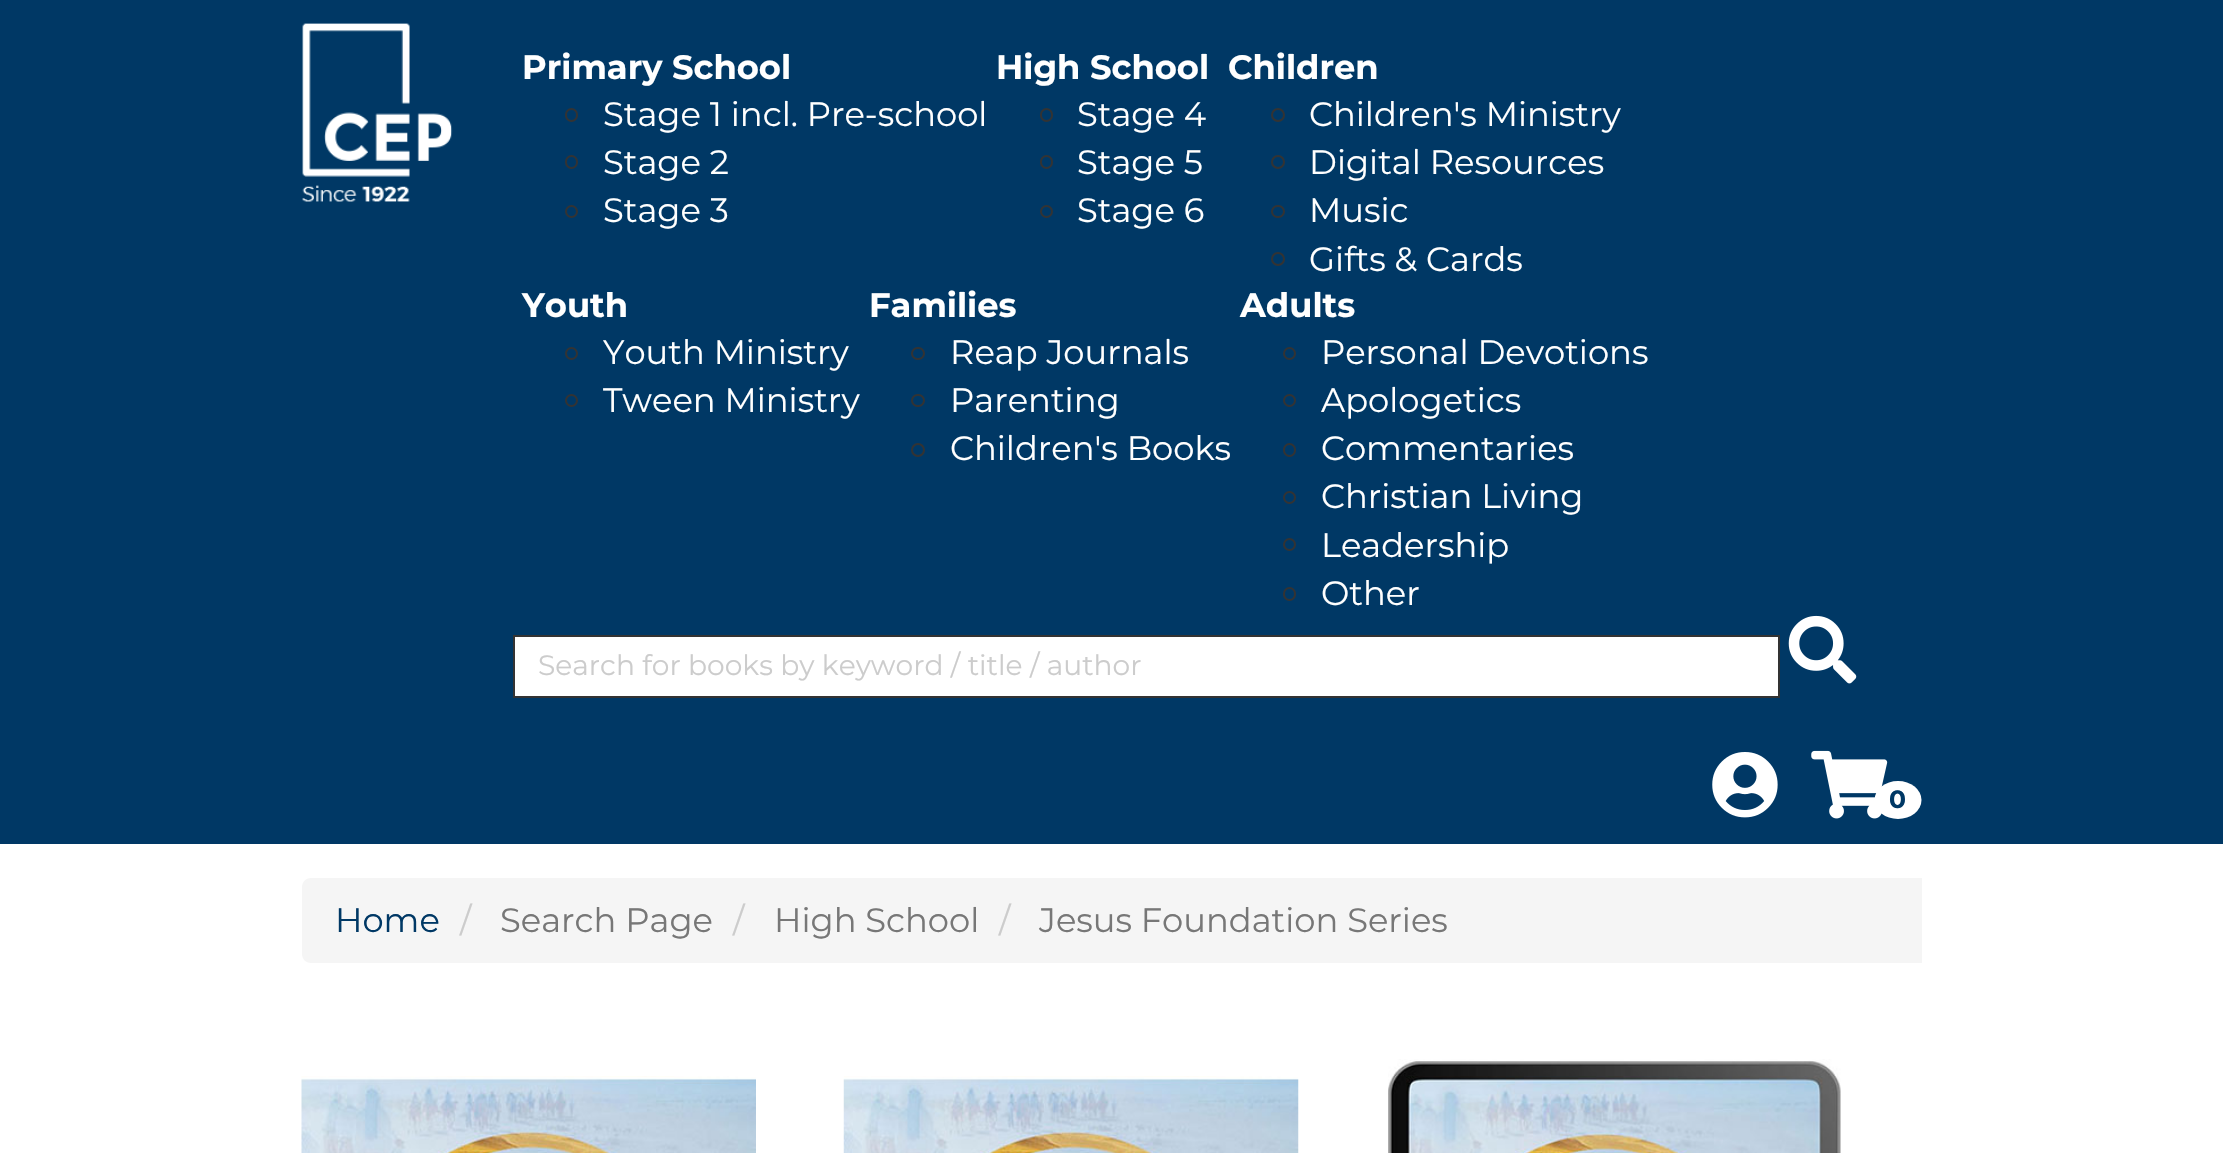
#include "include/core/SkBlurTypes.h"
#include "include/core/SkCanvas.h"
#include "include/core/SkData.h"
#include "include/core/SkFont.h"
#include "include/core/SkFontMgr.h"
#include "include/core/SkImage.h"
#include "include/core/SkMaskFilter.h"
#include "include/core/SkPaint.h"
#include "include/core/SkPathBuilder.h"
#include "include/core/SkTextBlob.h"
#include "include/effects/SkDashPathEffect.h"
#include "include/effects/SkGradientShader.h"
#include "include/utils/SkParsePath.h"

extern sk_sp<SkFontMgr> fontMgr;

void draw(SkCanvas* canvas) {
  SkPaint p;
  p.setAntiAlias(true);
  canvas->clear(SK_ColorWHITE);
  p.setColor(SkColorSetRGB(0, 56, 101));
  canvas->drawRect(SkRect::MakeLTRB(0, 0, 2223, 844), p);
  canvas->drawImageRect(SkImages::DeferredFromEncodedData(SkData::MakeFromFileName("images/1.png")), SkRect::MakeLTRB(302, 23, 453, 202), SkSamplingOptions());
  p.setStyle(SkPaint::kStroke_Style);
  p.setStrokeWidth(2);
  p.setColor(SkColorSetRGB(51, 51, 51));
  canvas->drawRoundRect(SkRect::MakeLTRB(566, 109, 577, 121), 5.5f, 5.5f, p);
  canvas->drawRoundRect(SkRect::MakeLTRB(566, 156, 577, 168), 5.5f, 5.5f, p);
  canvas->drawCircle(571.5f, 211.5f, 5.5f, p);
  canvas->drawRoundRect(SkRect::MakeLTRB(1041, 109, 1052, 121), 5.5f, 5.5f, p);
  canvas->drawRoundRect(SkRect::MakeLTRB(1041, 156, 1052, 168), 5.5f, 5.5f, p);
  canvas->drawCircle(1046.5f, 211.5f, 5.5f, p);
  canvas->drawCircle(1278, 115, 6, p);
  canvas->drawCircle(1278, 162, 6, p);
  canvas->drawRoundRect(SkRect::MakeLTRB(1272, 206, 1284, 217), 5.5f, 5.5f, p);
  canvas->drawCircle(1278, 259, 6, p);
  canvas->drawCircle(571.5f, 353.5f, 5.5f, p);
  canvas->drawCircle(571.5f, 400.5f, 5.5f, p);
  canvas->drawRoundRect(SkRect::MakeLTRB(912, 348, 924, 359), 5.5f, 5.5f, p);
  canvas->drawRoundRect(SkRect::MakeLTRB(912, 395, 924, 406), 5.5f, 5.5f, p);
  canvas->drawCircle(918, 450, 6, p);
  canvas->drawCircle(1289.5f, 353.5f, 5.5f, p);
  canvas->drawCircle(1289.5f, 400.5f, 5.5f, p);
  canvas->drawRoundRect(SkRect::MakeLTRB(1284, 444, 1295, 456), 5.5f, 5.5f, p);
  canvas->drawCircle(1289.5f, 497.5f, 5.5f, p);
  canvas->drawCircle(1289.5f, 544.5f, 5.5f, p);
  canvas->drawRoundRect(SkRect::MakeLTRB(1284, 588, 1295, 600), 5.5f, 5.5f, p);
  p.setStyle(SkPaint::kFill_Style);
  p.setColor(SK_ColorWHITE);
  canvas->drawRect(SkRect::MakeLTRB(514, 636, 1779, 697), p);
  p.setStyle(SkPaint::kStroke_Style);
  p.setColor(SkColorSetRGB(51, 51, 51));
  canvas->drawRect(SkRect::MakeLTRB(514, 636, 1779, 697), p);
  canvas->drawImageRect(SkImages::DeferredFromEncodedData(SkData::MakeFromFileName("images/2.png")), SkRect::MakeLTRB(1788, 615, 1857, 684), SkSamplingOptions());
  canvas->drawImageRect(SkImages::DeferredFromEncodedData(SkData::MakeFromFileName("images/3.png")), SkRect::MakeLTRB(1712, 752, 1778, 818), SkSamplingOptions());
  canvas->drawImageRect(SkImages::DeferredFromEncodedData(SkData::MakeFromFileName("images/4.png")), SkRect::MakeLTRB(1811, 750, 1888, 819), SkSamplingOptions());
  p.setStyle(SkPaint::kFill_Style);
  p.setColor(SK_ColorWHITE);
  canvas->drawOval(SkRect::MakeLTRB(1874.5f, 781, 1921.5f, 819), p);
  p.setColor(SkColorSetRGB(245, 245, 245));
  canvas->drawPath(SkPathBuilder().moveTo(311, 878).lineTo(1922, 878).lineTo(1922, 963).lineTo(311, 963).cubicTo(306, 963, 302, 959, 302, 954).lineTo(302, 887).cubicTo(302, 882, 306, 878, 311, 878).close().detach(), p);
  canvas->drawImageRect(SkImages::DeferredFromEncodedData(SkData::MakeFromFileName("images/5.png")), SkRect::MakeLTRB(301, 1076, 756, 1153), SkSamplingOptions());
  canvas->drawImageRect(SkImages::DeferredFromEncodedData(SkData::MakeFromFileName("images/6.png")), SkRect::MakeLTRB(843, 1076, 1299, 1153), SkSamplingOptions());
  canvas->drawImageRect(SkImages::DeferredFromEncodedData(SkData::MakeFromFileName("images/7.png")), SkRect::MakeLTRB(1388, 1059, 1841, 1153), SkSamplingOptions());
  SkFont font1(fontMgr->matchFamilyStyle("Montserrat", SkFontStyle::Bold()), 33.75f);
  font1.setSubpixel(true);
  p.setColor(SK_ColorWHITE);
  canvas->drawString("Primary School", 522, 79, font1, p);
  SkFont font2(fontMgr->matchFamilyStyle("Montserrat", SkFontStyle::Normal()), 33.75f);
  font2.setSubpixel(true);
  canvas->drawString("Stage 1 incl. Pre-school", 603, 126, font2, p);
  canvas->drawString("Stage 2", 603, 174, font2, p);
  canvas->drawString("Stage 3", 603, 222, font2, p);
  canvas->drawString("High School", 996, 79, font1, p);
  canvas->drawString("Stage 4", 1077, 126, font2, p);
  canvas->drawString("Stage 5", 1077, 174, font2, p);
  canvas->drawString("Stage 6", 1077, 222, font2, p);
  canvas->drawString("Children", 1228, 79, font1, p);
  canvas->drawString("Children's Ministry", 1309, 126, font2, p);
  canvas->drawString("Digital Resources", 1309, 174, font2, p);
  canvas->drawString("Music", 1309, 222, font2, p);
  canvas->drawString("Gifts & Cards", 1309, 271, font2, p);
  canvas->drawString("Youth", 522, 317, font1, p);
  canvas->drawString("Youth Ministry", 603, 364, font2, p);
  canvas->drawString("Tween Ministry", 603, 412, font2, p);
  canvas->drawString("Families", 869, 317, font1, p);
  canvas->drawString("Reap Journals", 950, 364, font2, p);
  canvas->drawString("Parenting", 950, 412, font2, p);
  canvas->drawString("Children's Books", 950, 460, font2, p);
  canvas->drawString("Adults", 1240, 317, font1, p);
  canvas->drawString("Personal Devotions", 1321, 364, font2, p);
  canvas->drawString("Apologetics", 1321, 412, font2, p);
  canvas->drawString("Commentaries", 1321, 460, font2, p);
  canvas->drawString("Christian Living", 1321, 508, font2, p);
  canvas->drawString("Leadership", 1321, 557, font2, p);
  canvas->drawString("Other", 1321, 605, font2, p);
  SkFont font3(fontMgr->matchFamilyStyle("Montserrat", SkFontStyle::Normal()), 28.1f);
  font3.setSubpixel(true);
  p.setColor(SkColorSetRGB(204, 204, 204));
  canvas->drawString("Search for books by keyword / title / author", 538, 675, font3, p);
  SkFont font4(fontMgr->matchFamilyStyle("Montserrat", SkFontStyle::Bold()), 25);
  font4.setSubpixel(true);
  p.setColor(SkColorSetRGB(0, 56, 101));
  canvas->drawString("0", 1889, 808, font4, p);
  canvas->drawString("Home", 335, 932, font2, p);
  p.setColor(SkColorSetRGB(204, 204, 204));
  canvas->drawString("/", 460, 932, font2, p);
  p.setColor(SkColorSetRGB(119, 119, 119));
  canvas->drawString("Search Page", 500, 932, font2, p);
  p.setColor(SkColorSetRGB(204, 204, 204));
  canvas->drawString("/", 733, 932, font2, p);
  p.setColor(SkColorSetRGB(119, 119, 119));
  canvas->drawString("High School", 774, 932, font2, p);
  p.setColor(SkColorSetRGB(204, 204, 204));
  canvas->drawString("/", 999, 932, font2, p);
  p.setColor(SkColorSetRGB(119, 119, 119));
  canvas->drawString("Jesus Foundation Series", 1039, 932, font2, p);
}
